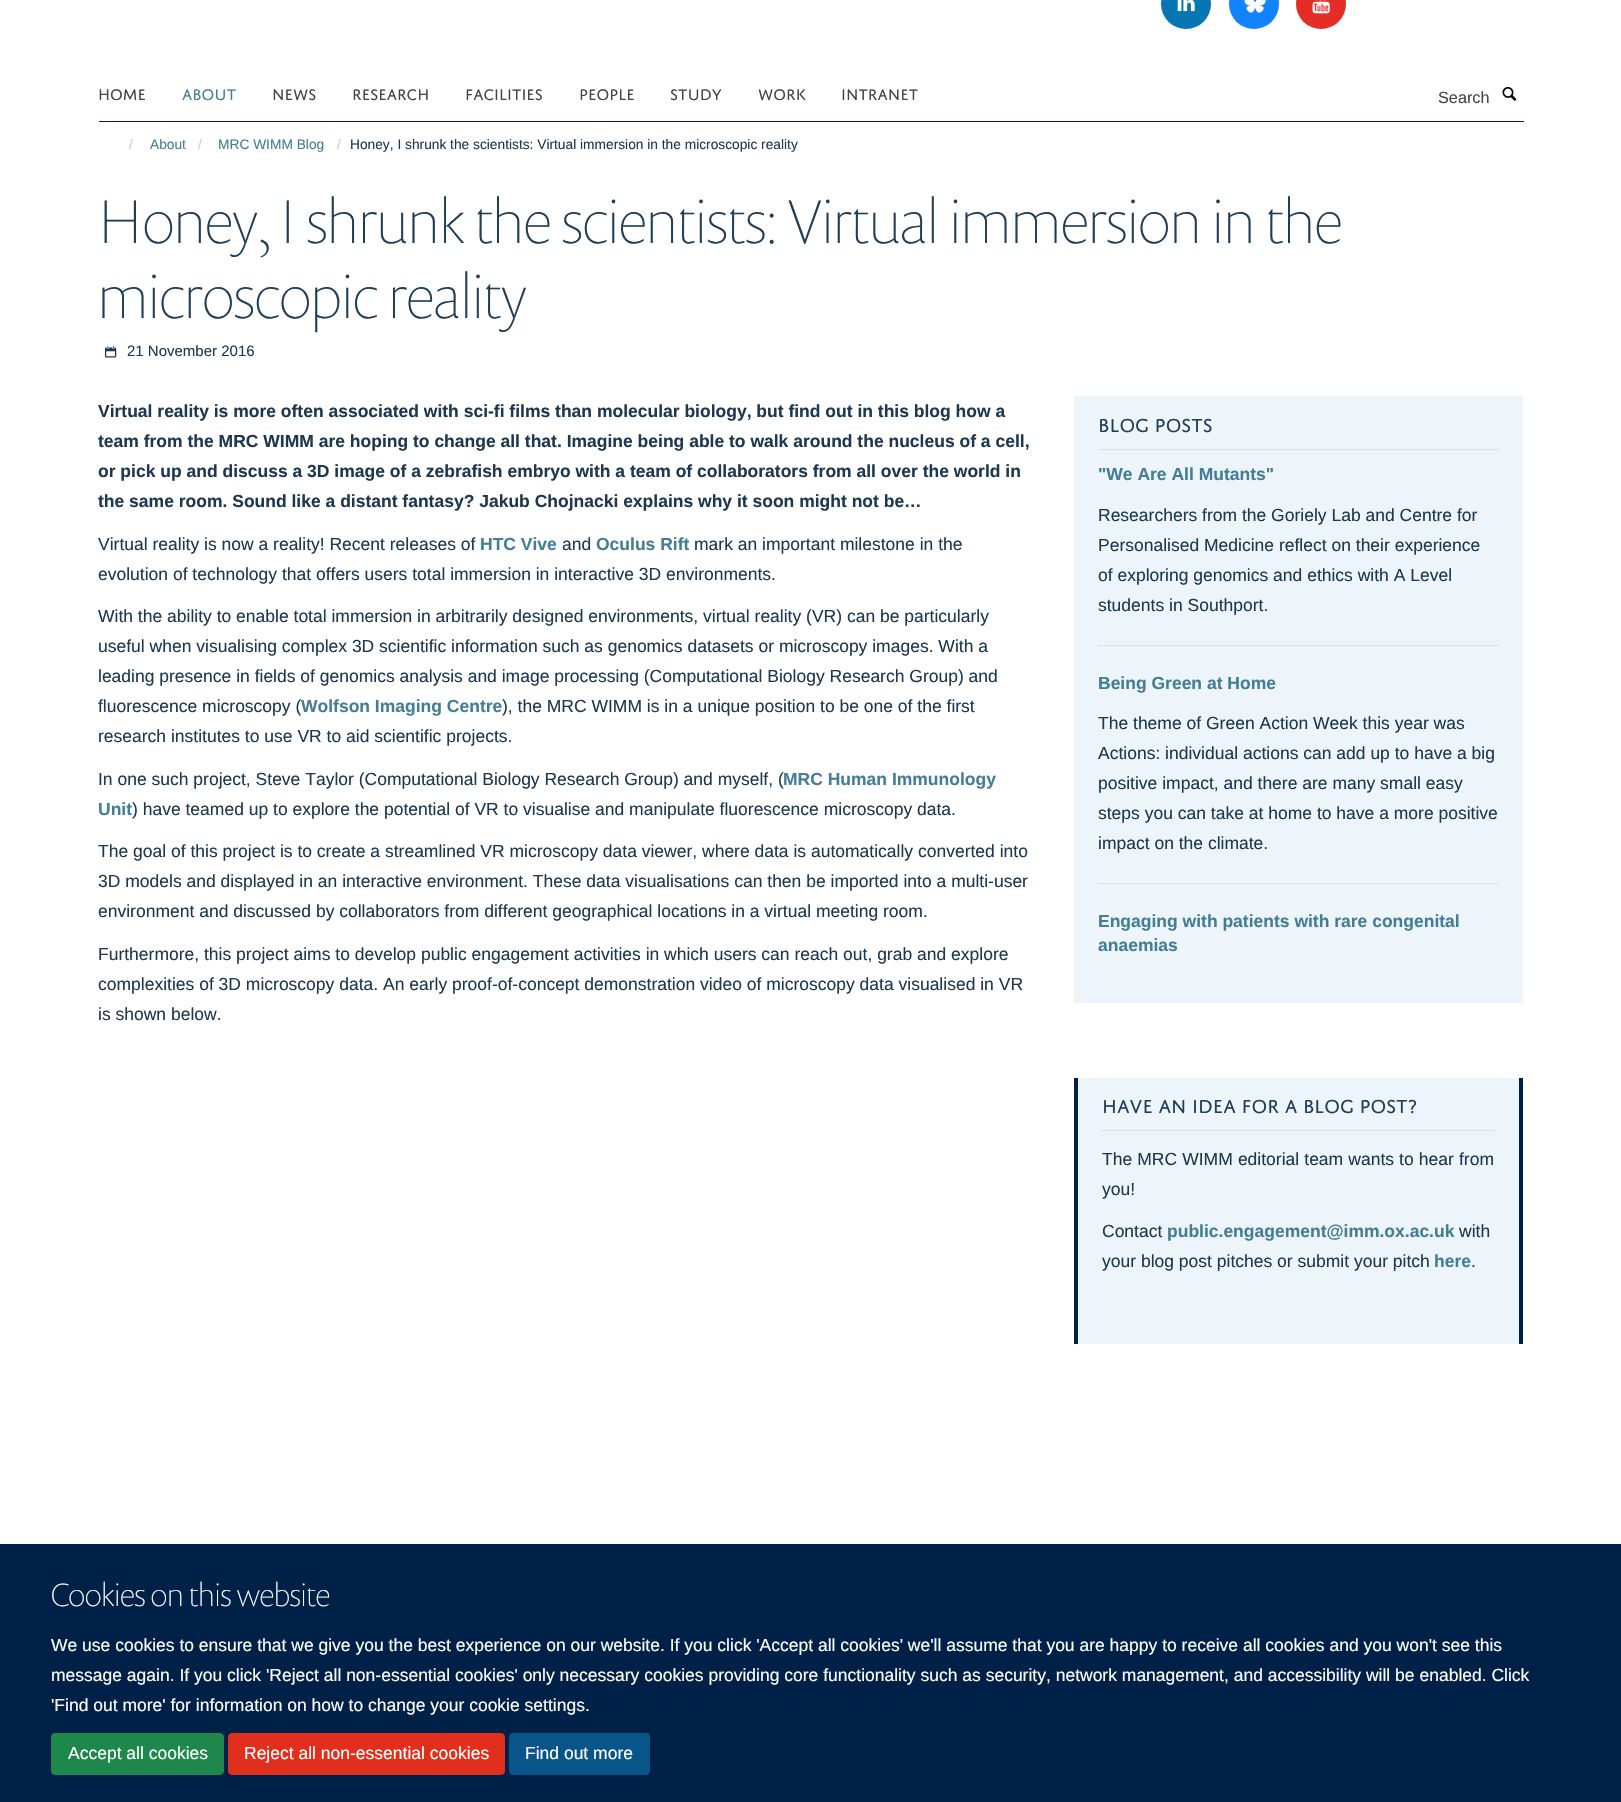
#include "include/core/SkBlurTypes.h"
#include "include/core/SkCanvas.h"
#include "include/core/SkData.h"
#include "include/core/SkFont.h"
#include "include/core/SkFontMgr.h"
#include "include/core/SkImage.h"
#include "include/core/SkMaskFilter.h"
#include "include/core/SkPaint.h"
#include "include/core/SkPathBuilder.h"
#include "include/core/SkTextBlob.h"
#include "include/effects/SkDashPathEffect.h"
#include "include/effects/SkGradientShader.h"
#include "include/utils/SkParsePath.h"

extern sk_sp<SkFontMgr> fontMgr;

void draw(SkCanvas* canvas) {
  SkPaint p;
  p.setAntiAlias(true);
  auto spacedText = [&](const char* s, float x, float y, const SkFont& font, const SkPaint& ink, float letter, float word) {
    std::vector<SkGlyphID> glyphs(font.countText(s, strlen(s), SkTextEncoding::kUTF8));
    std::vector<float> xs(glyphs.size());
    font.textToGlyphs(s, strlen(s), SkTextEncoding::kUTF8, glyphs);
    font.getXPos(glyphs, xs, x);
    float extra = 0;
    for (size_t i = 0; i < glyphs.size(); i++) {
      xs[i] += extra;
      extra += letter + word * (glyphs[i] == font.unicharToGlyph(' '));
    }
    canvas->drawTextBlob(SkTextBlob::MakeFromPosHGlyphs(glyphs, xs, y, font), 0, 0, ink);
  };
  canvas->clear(SK_ColorWHITE);
  p.setColor(SkColorSetRGB(9, 118, 180));
  canvas->drawCircle(1186, 4, 25, p);
  canvas->drawImageRect(SkImages::DeferredFromEncodedData(SkData::MakeFromFileName("images/1.png")), SkRect::MakeLTRB(1177, 0, 1195, 12), SkSamplingOptions());
  p.setColor(SkColorSetRGB(17, 131, 252));
  canvas->drawCircle(1254, 4, 25, p);
  canvas->drawImageRect(SkImages::DeferredFromEncodedData(SkData::MakeFromFileName("images/2.png")), SkRect::MakeLTRB(1244, 0, 1266, 13), SkSamplingOptions());
  p.setColor(SkColorSetRGB(229, 45, 39));
  canvas->drawCircle(1321, 4, 25, p);
  canvas->drawImageRect(SkImages::DeferredFromEncodedData(SkData::MakeFromFileName("images/3.png")), SkRect::MakeLTRB(1312, 0, 1330, 14), SkSamplingOptions());
  p.setColor(SkColorSetRGB(0, 33, 71));
  canvas->drawRect(SkRect::MakeLTRB(99, 121, 1524, 122), p);
  canvas->drawImageRect(SkImages::DeferredFromEncodedData(SkData::MakeFromFileName("images/4.png")), SkRect::MakeLTRB(1502, 86, 1517, 101), SkSamplingOptions());
  canvas->drawImageRect(SkImages::DeferredFromEncodedData(SkData::MakeFromFileName("images/5.png")), SkRect::MakeLTRB(105, 346, 117, 358), SkSamplingOptions());
  p.setColor(SkColorSetRGB(237, 244, 250));
  canvas->drawRect(SkRect::MakeLTRB(1074, 396, 1523, 1003), p);
  p.setColor(SkColorSetRGB(221, 221, 221));
  canvas->drawRect(SkRect::MakeLTRB(1098, 449, 1499, 450), p);
  p.setColor(SkColorSetRGB(223, 225, 228));
  canvas->drawRect(SkRect::MakeLTRB(1098, 645, 1499, 646), p);
  canvas->drawRect(SkRect::MakeLTRB(1098, 883, 1499, 884), p);
  p.setColor(SkColorSetRGB(237, 244, 250));
  canvas->drawRect(SkRect::MakeLTRB(1078, 1078, 1519, 1344), p);
  p.setColor(SkColorSetRGB(0, 33, 71));
  canvas->drawRect(SkRect::MakeLTRB(1519, 1078, 1523, 1344), p);
  canvas->drawRect(SkRect::MakeLTRB(1074, 1078, 1078, 1344), p);
  p.setColor(SkColorSetRGB(221, 221, 221));
  canvas->drawRect(SkRect::MakeLTRB(1101, 1130, 1495, 1131), p);
  p.setColor(SkColorSetRGB(0, 33, 71));
  canvas->drawRect(SkRect::MakeLTRB(0, 1544, 1621, 1802), p);
  p.setColor(SkColorSetRGB(30, 135, 75));
  canvas->drawRoundRect(SkRect::MakeLTRB(51.5f, 1733.5f, 223.5f, 1774.5f), 3.5f, 3.5f, p);
  p.setStyle(SkPaint::kStroke_Style);
  p.setStrokeWidth(1);
  canvas->drawRoundRect(SkRect::MakeLTRB(51.5f, 1733.5f, 223.5f, 1774.5f), 3.5f, 3.5f, p);
  p.setStyle(SkPaint::kFill_Style);
  p.setColor(SkColorSetRGB(226, 46, 28));
  canvas->drawRoundRect(SkRect::MakeLTRB(228.5f, 1733.5f, 504.5f, 1774.5f), 3.5f, 3.5f, p);
  p.setStyle(SkPaint::kStroke_Style);
  canvas->drawRoundRect(SkRect::MakeLTRB(228.5f, 1733.5f, 504.5f, 1774.5f), 3.5f, 3.5f, p);
  p.setStyle(SkPaint::kFill_Style);
  p.setColor(SkColorSetRGB(8, 85, 137));
  canvas->drawRoundRect(SkRect::MakeLTRB(509.5f, 1733.5f, 649.5f, 1774.5f), 3.5f, 3.5f, p);
  p.setStyle(SkPaint::kStroke_Style);
  canvas->drawRoundRect(SkRect::MakeLTRB(509.5f, 1733.5f, 649.5f, 1774.5f), 3.5f, 3.5f, p);
  SkFont font1(fontMgr->matchFamilyStyle("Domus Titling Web", SkFontStyle::Normal()), 16.25f);
  font1.setSubpixel(true);
  p.setStyle(SkPaint::kFill_Style);
  p.setColor(SkColorSetRGB(68, 68, 68));
  canvas->drawString("HOME", 98, 100, font1, p);
  p.setColor(SkColorSetRGB(67, 126, 150));
  canvas->drawString("ABOUT", 182, 100, font1, p);
  p.setColor(SkColorSetRGB(68, 68, 68));
  canvas->drawString("NEWS", 272, 100, font1, p);
  canvas->drawString("RESEARCH", 352, 100, font1, p);
  canvas->drawString("FACILITIES", 465, 100, font1, p);
  canvas->drawString("PEOPLE", 579, 100, font1, p);
  canvas->drawString("STUDY", 670, 100, font1, p);
  canvas->drawString("WORK", 758, 100, font1, p);
  canvas->drawString("INTRANET", 841, 100, font1, p);
  SkFont font2(fontMgr->matchFamilyStyle("Liberation Sans", SkFontStyle::Normal()), 16.25f);
  font2.setSubpixel(true);
  canvas->drawString("Search", 1438, 103, font2, p);
  SkFont font3(fontMgr->matchFamilyStyle("Liberation Sans", SkFontStyle::Normal()), 13.75f);
  font3.setSubpixel(true);
  p.setColor(SkColorSetRGB(204, 204, 204));
  canvas->drawString("/", 129, 149, font3, p);
  p.setColor(SkColorSetRGB(67, 126, 150));
  canvas->drawString("About", 150, 149, font3, p);
  p.setColor(SkColorSetRGB(204, 204, 204));
  canvas->drawString("/", 198, 149, font3, p);
  p.setColor(SkColorSetRGB(67, 126, 150));
  canvas->drawString("MRC WIMM Blog", 218, 149, font3, p);
  p.setColor(SkColorSetRGB(204, 204, 204));
  canvas->drawString("/", 337, 149, font3, p);
  p.setColor(SkColorSetRGB(29, 56, 80));
  canvas->drawString("Honey, I shrunk the scientists: Virtual immersion in the microscopic reality", 350, 149, font3, p);
  SkFont font4(fontMgr->matchFamilyStyle("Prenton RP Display", SkFontStyle(100, SkFontStyle::kNormal_Width, SkFontStyle::kUpright_Slant)), 62.5f);
  font4.setSubpixel(true);
  p.setColor(SkColorSetRGB(32, 62, 88));
  canvas->drawString("Honey, I shrunk the scientists: Virtual immersion in the", 98, 243, font4, p);
  canvas->drawString("microscopic reality", 98, 318, font4, p);
  SkFont font5(fontMgr->matchFamilyStyle("Liberation Sans", SkFontStyle::Normal()), 15);
  font5.setSubpixel(true);
  p.setColor(SkColorSetRGB(29, 56, 80));
  canvas->drawString("21 November 2016", 127, 356, font5, p);
  SkFont font6(fontMgr->matchFamilyStyle("Liberation Sans", SkFontStyle::Bold()), 17.5f);
  font6.setSubpixel(true);
  canvas->drawString("Virtual reality is more often associated with sci-fi films than molecular biology, but find out in this blog how a", 98, 417, font6, p);
  canvas->drawString("team from the MRC WIMM are hoping to change all that. Imagine being able to walk around the nucleus of a cell,", 98, 447, font6, p);
  canvas->drawString("or pick up and discuss a 3D image of a zebrafish embryo with a team of collaborators from all over the world in", 98, 477, font6, p);
  canvas->drawString("the same room. Sound like a distant fantasy? Jakub Chojnacki explains why it soon might not be…", 98, 507, font6, p);
  SkFont font7(fontMgr->matchFamilyStyle("Liberation Sans", SkFontStyle::Normal()), 17.5f);
  font7.setSubpixel(true);
  canvas->drawString("Virtual reality is now a reality! Recent releases of", 98, 550, font7, p);
  p.setColor(SkColorSetRGB(67, 126, 150));
  canvas->drawString("HTC Vive", 480, 550, font6, p);
  p.setColor(SkColorSetRGB(29, 56, 80));
  canvas->drawString("and", 562, 550, font7, p);
  p.setColor(SkColorSetRGB(67, 126, 150));
  canvas->drawString("Oculus Rift", 596, 550, font6, p);
  p.setColor(SkColorSetRGB(29, 56, 80));
  canvas->drawString("mark an important milestone in the", 694, 550, font7, p);
  canvas->drawString("evolution of technology that offers users total immersion in interactive 3D environments.", 98, 580, font7, p);
  canvas->drawString("With the ability to enable total immersion in arbitrarily designed environments, virtual reality (VR) can be particularly", 98, 622, font7, p);
  canvas->drawString("useful when visualising complex 3D scientific information such as genomics datasets or microscopy images. With a", 98, 652, font7, p);
  canvas->drawString("leading presence in fields of genomics analysis and image processing (Computational Biology Research Group) and", 98, 682, font7, p);
  canvas->drawString("fluorescence microscopy (", 98, 712, font7, p);
  p.setColor(SkColorSetRGB(67, 126, 150));
  canvas->drawString("Wolfson Imaging Centre", 301, 712, font6, p);
  p.setColor(SkColorSetRGB(29, 56, 80));
  canvas->drawString("), the MRC WIMM is in a unique position to be one of the first", 502, 712, font7, p);
  canvas->drawString("research institutes to use VR to aid scientific projects.", 98, 742, font7, p);
  canvas->drawString("In one such project, Steve Taylor (Computational Biology Research Group) and myself, (", 98, 785, font7, p);
  p.setColor(SkColorSetRGB(67, 126, 150));
  canvas->drawString("MRC Human Immunology", 783, 785, font6, p);
  canvas->drawString("Unit", 98, 815, font6, p);
  p.setColor(SkColorSetRGB(29, 56, 80));
  canvas->drawString(") have teamed up to explore the potential of VR to visualise and manipulate fluorescence microscopy data.", 132, 815, font7, p);
  canvas->drawString("The goal of this project is to create a streamlined VR microscopy data viewer, where data is automatically converted into", 98, 857, font7, p);
  canvas->drawString("3D models and displayed in an interactive environment. These data visualisations can then be imported into a multi-user", 98, 887, font7, p);
  canvas->drawString("environment and discussed by collaborators from different geographical locations in a virtual meeting room.", 98, 917, font7, p);
  canvas->drawString("Furthermore, this project aims to develop public engagement activities in which users can reach out, grab and explore", 98, 960, font7, p);
  canvas->drawString("complexities of 3D microscopy data. An early proof-of-concept demonstration video of microscopy data visualised in VR", 98, 990, font7, p);
  canvas->drawString("is shown below.", 98, 1020, font7, p);
  SkFont font8(fontMgr->matchFamilyStyle("Domus Titling Web", SkFontStyle::Normal()), 20);
  font8.setSubpixel(true);
  p.setColor(SkColorSetRGB(32, 62, 88));
  canvas->drawString("BLOG POSTS", 1098, 432, font8, p);
  p.setColor(SkColorSetRGB(67, 126, 150));
  canvas->drawString("\"We Are All Mutants\"", 1098, 480, font6, p);
  p.setColor(SkColorSetRGB(29, 56, 80));
  canvas->drawString("Researchers from the Goriely Lab and Centre for", 1098, 521, font7, p);
  canvas->drawString("Personalised Medicine reflect on their experience", 1098, 551, font7, p);
  canvas->drawString("of exploring genomics and ethics with A Level", 1098, 581, font7, p);
  canvas->drawString("students in Southport.", 1098, 611, font7, p);
  p.setColor(SkColorSetRGB(67, 126, 150));
  canvas->drawString("Being Green at Home", 1098, 689, font6, p);
  p.setColor(SkColorSetRGB(29, 56, 80));
  canvas->drawString("The theme of Green Action Week this year was", 1098, 729, font7, p);
  canvas->drawString("Actions: individual actions can add up to have a big", 1098, 759, font7, p);
  canvas->drawString("positive impact, and there are many small easy", 1098, 789, font7, p);
  canvas->drawString("steps you can take at home to have a more positive", 1098, 819, font7, p);
  canvas->drawString("impact on the climate.", 1098, 849, font7, p);
  p.setColor(SkColorSetRGB(67, 126, 150));
  canvas->drawString("Engaging with patients with rare congenital", 1098, 927, font6, p);
  canvas->drawString("anaemias", 1098, 951, font6, p);
  p.setColor(SkColorSetRGB(32, 62, 88));
  canvas->drawString("HAVE AN IDEA FOR A BLOG POST?", 1102, 1113, font8, p);
  p.setColor(SkColorSetRGB(29, 56, 80));
  spacedText("The MRC WIMM editorial team wants to hear from", 1102, 1165, font7, p, 0, 0.25f);
  canvas->drawString("you!", 1102, 1195, font7, p);
  canvas->drawString("Contact", 1102, 1237, font7, p);
  p.setColor(SkColorSetRGB(67, 126, 150));
  canvas->drawString("public.engagement@imm.ox.ac.uk", 1167, 1237, font6, p);
  p.setColor(SkColorSetRGB(29, 56, 80));
  canvas->drawString("with", 1459, 1237, font7, p);
  canvas->drawString("your blog post pitches or submit your pitch", 1102, 1267, font7, p);
  p.setColor(SkColorSetRGB(67, 126, 150));
  canvas->drawString("here", 1434, 1267, font6, p);
  p.setColor(SkColorSetRGB(29, 56, 80));
  canvas->drawString(".", 1471, 1267, font7, p);
  SkFont font9(fontMgr->matchFamilyStyle("Prenton RP Display", SkFontStyle(100, SkFontStyle::kNormal_Width, SkFontStyle::kUpright_Slant)), 32.5f);
  font9.setSubpixel(true);
  p.setColor(SK_ColorWHITE);
  canvas->drawString("Cookies on this website", 51, 1606, font9, p);
  canvas->drawString("We use cookies to ensure that we give you the best experience on our website. If you click 'Accept all cookies' we'll assume that you are happy to receive all cookies and you won't see this", 51, 1651, font7, p);
  canvas->drawString("message again. If you click 'Reject all non-essential cookies' only necessary cookies providing core functionality such as security, network management, and accessibility will be enabled. Click", 51, 1681, font7, p);
  canvas->drawString("'Find out more' for information on how to change your cookie settings.", 51, 1711, font7, p);
  canvas->drawString("Accept all cookies", 68, 1759, font7, p);
  canvas->drawString("Reject all non-essential cookies", 244, 1759, font7, p);
  canvas->drawString("Find out more", 525, 1759, font7, p);
}
